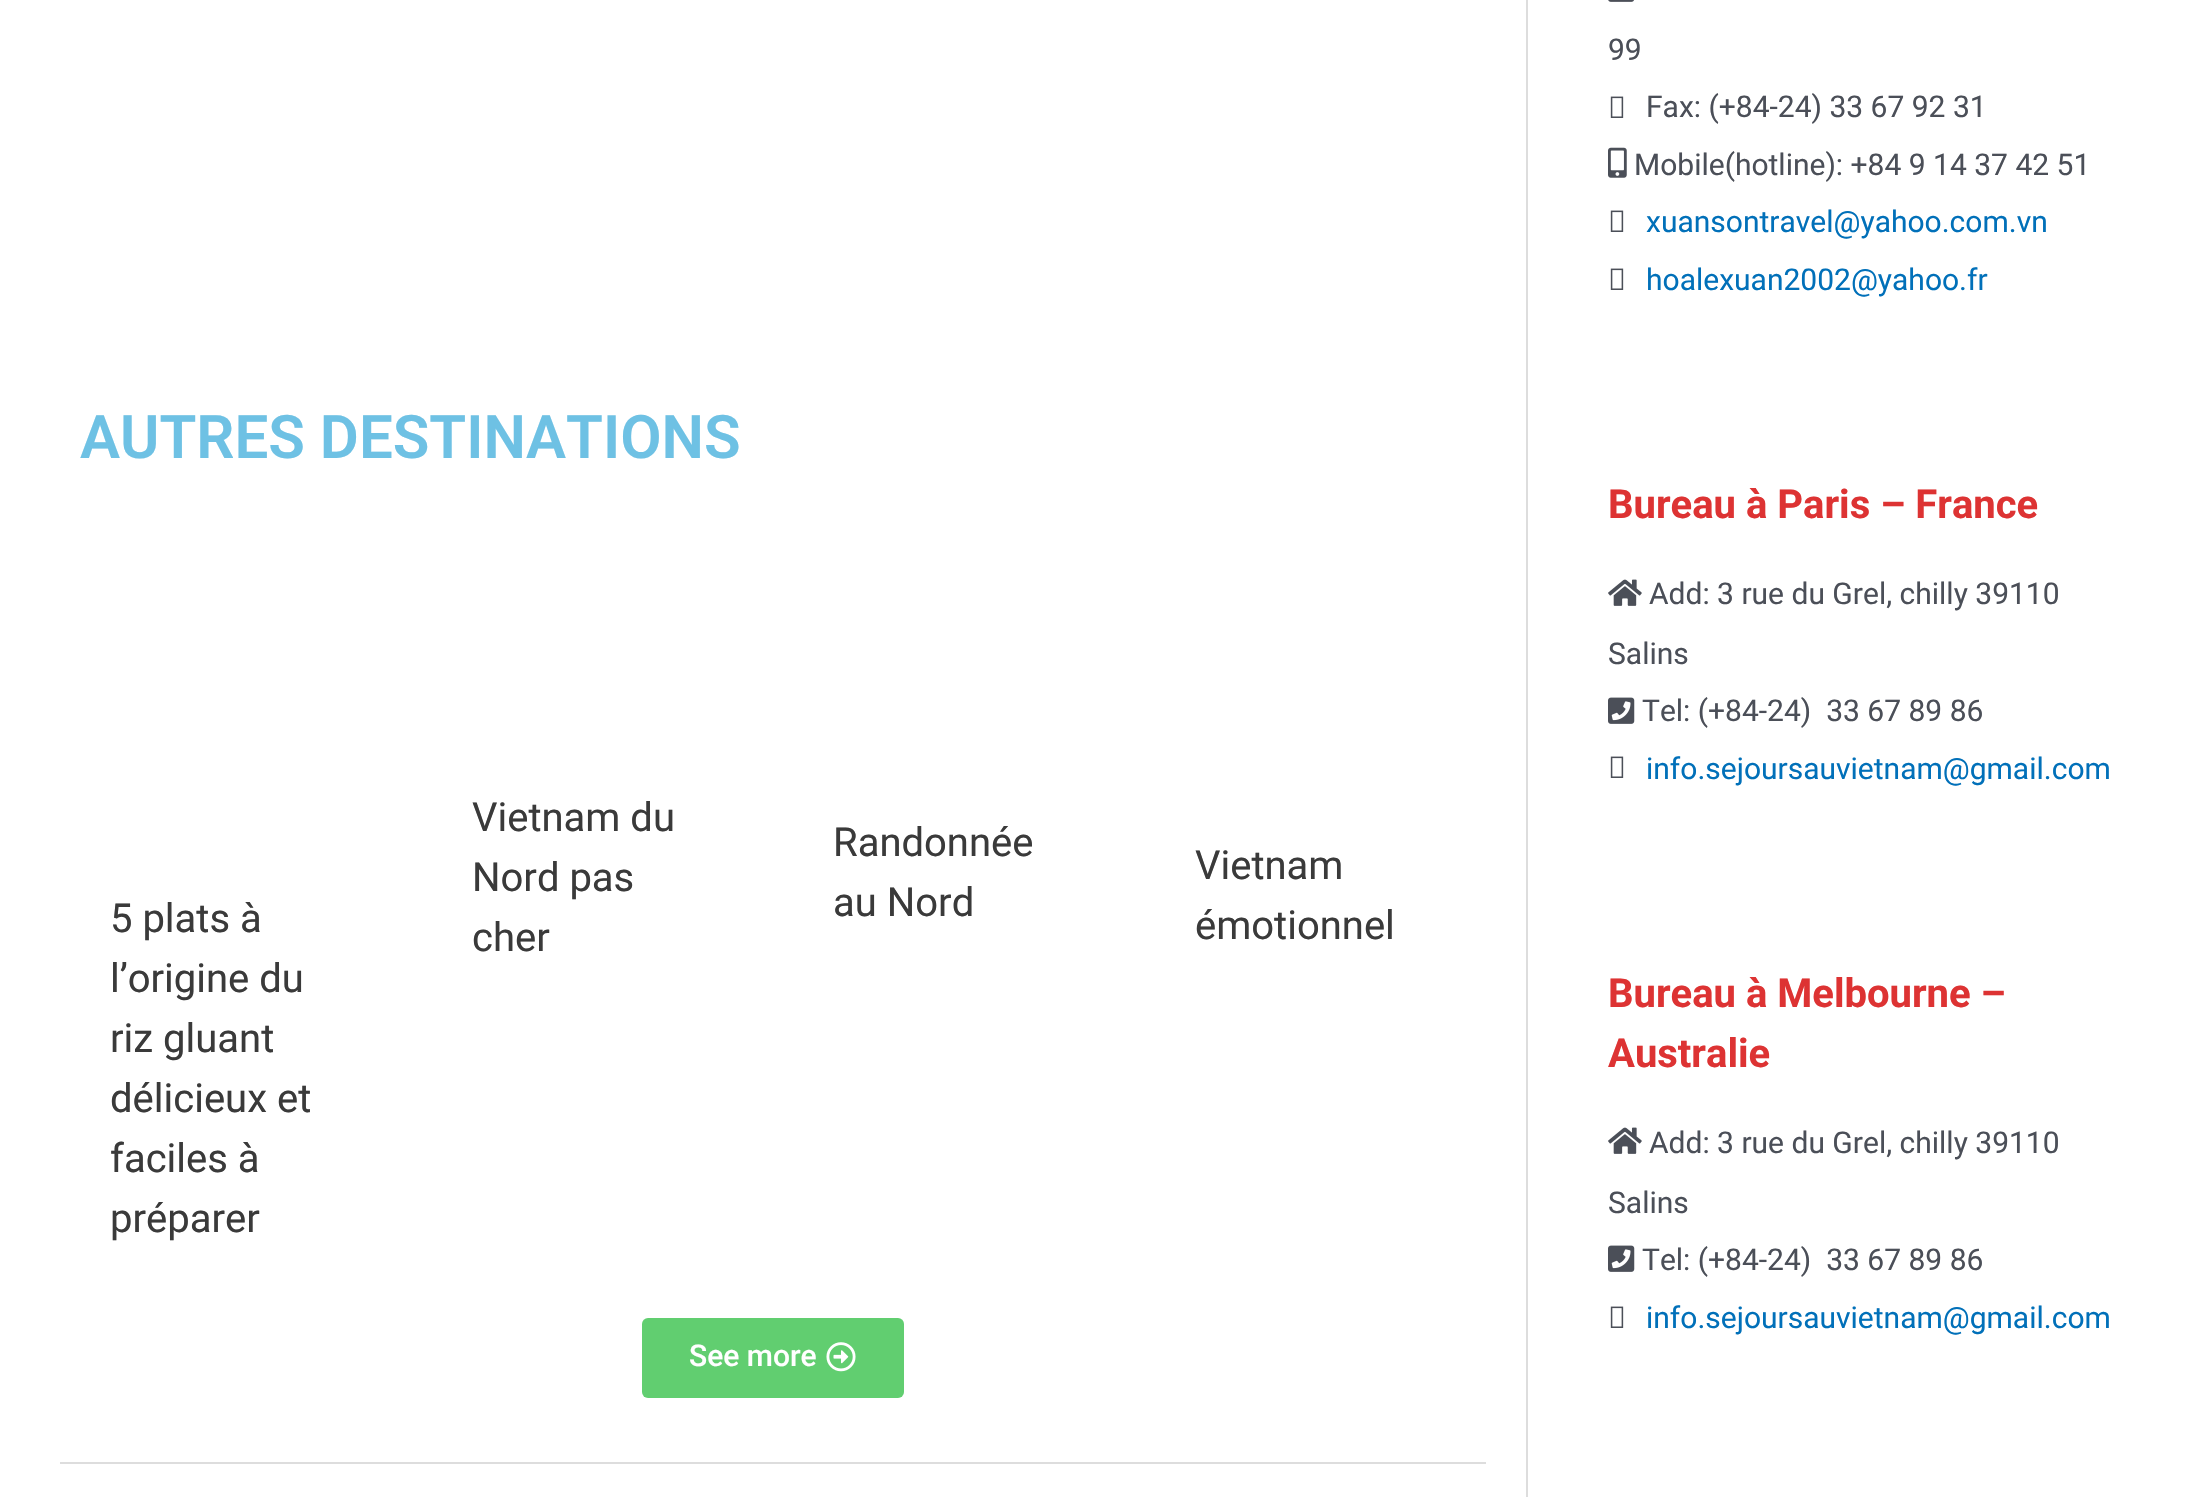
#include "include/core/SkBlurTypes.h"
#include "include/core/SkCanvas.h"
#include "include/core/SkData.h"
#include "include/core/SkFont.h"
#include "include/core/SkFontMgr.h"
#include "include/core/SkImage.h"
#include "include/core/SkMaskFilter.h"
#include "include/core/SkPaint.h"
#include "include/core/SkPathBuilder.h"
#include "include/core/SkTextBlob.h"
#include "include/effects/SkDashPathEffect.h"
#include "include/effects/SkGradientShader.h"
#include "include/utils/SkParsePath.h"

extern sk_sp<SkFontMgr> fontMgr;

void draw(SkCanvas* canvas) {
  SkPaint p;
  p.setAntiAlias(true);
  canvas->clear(SK_ColorWHITE);
  p.setColor(SkColorSetRGB(221, 221, 221));
  canvas->drawRect(SkRect::MakeLTRB(1526, 0, 1528, 1497), p);
  p.setColor(SkColorSetRGB(97, 206, 112));
  canvas->drawRoundRect(SkRect::MakeLTRB(642, 1318, 904, 1398), 6, 6, p);
  canvas->drawImageRect(SkImages::DeferredFromEncodedData(SkData::MakeFromFileName("images/1.png")), SkRect::MakeLTRB(826, 1342, 856, 1372), SkSamplingOptions());
  p.setColor(SkColorSetRGB(221, 221, 221));
  canvas->drawRect(SkRect::MakeLTRB(60, 1462, 1486, 1464), p);
  canvas->drawImageRect(SkImages::DeferredFromEncodedData(SkData::MakeFromFileName("images/2.png")), SkRect::MakeLTRB(1608, 0, 1634, 2), SkSamplingOptions());
  canvas->drawImageRect(SkImages::DeferredFromEncodedData(SkData::MakeFromFileName("images/3.png")), SkRect::MakeLTRB(1610, 96, 1624, 118), SkSamplingOptions());
  canvas->drawImageRect(SkImages::DeferredFromEncodedData(SkData::MakeFromFileName("images/4.png")), SkRect::MakeLTRB(1608, 147, 1627, 178), SkSamplingOptions());
  canvas->drawImageRect(SkImages::DeferredFromEncodedData(SkData::MakeFromFileName("images/3.png")), SkRect::MakeLTRB(1610, 210, 1624, 232), SkSamplingOptions());
  canvas->drawImageRect(SkImages::DeferredFromEncodedData(SkData::MakeFromFileName("images/3.png")), SkRect::MakeLTRB(1610, 268, 1624, 290), SkSamplingOptions());
  canvas->drawImageRect(SkImages::DeferredFromEncodedData(SkData::MakeFromFileName("images/5.png")), SkRect::MakeLTRB(1608, 579, 1642, 606), SkSamplingOptions());
  canvas->drawImageRect(SkImages::DeferredFromEncodedData(SkData::MakeFromFileName("images/6.png")), SkRect::MakeLTRB(1608, 697, 1635, 724), SkSamplingOptions());
  canvas->drawImageRect(SkImages::DeferredFromEncodedData(SkData::MakeFromFileName("images/3.png")), SkRect::MakeLTRB(1610, 756, 1624, 778), SkSamplingOptions());
  canvas->drawImageRect(SkImages::DeferredFromEncodedData(SkData::MakeFromFileName("images/5.png")), SkRect::MakeLTRB(1608, 1127, 1642, 1154), SkSamplingOptions());
  canvas->drawImageRect(SkImages::DeferredFromEncodedData(SkData::MakeFromFileName("images/6.png")), SkRect::MakeLTRB(1608, 1245, 1635, 1272), SkSamplingOptions());
  canvas->drawImageRect(SkImages::DeferredFromEncodedData(SkData::MakeFromFileName("images/3.png")), SkRect::MakeLTRB(1610, 1306, 1624, 1328), SkSamplingOptions());
  SkFont font1(fontMgr->matchFamilyStyle("Roboto", SkFontStyle(600, SkFontStyle::kNormal_Width, SkFontStyle::kUpright_Slant)), 60);
  font1.setSubpixel(true);
  p.setColor(SkColorSetRGB(110, 193, 228));
  canvas->drawString("AUTRES DESTINATIONS", 80, 458, font1, p);
  SkFont font2(fontMgr->matchFamilyStyle("Roboto", SkFontStyle::Normal()), 40);
  font2.setSubpixel(true);
  p.setColor(SkColorSetRGB(58, 58, 58));
  canvas->drawString("5 plats à", 110, 932, font2, p);
  canvas->drawString("l’origine du", 110, 992, font2, p);
  canvas->drawString("riz gluant", 110, 1052, font2, p);
  canvas->drawString("délicieux et", 110, 1112, font2, p);
  canvas->drawString("faciles à", 110, 1172, font2, p);
  canvas->drawString("préparer", 110, 1232, font2, p);
  canvas->drawString("Vietnam du", 472, 831, font2, p);
  canvas->drawString("Nord pas", 472, 891, font2, p);
  canvas->drawString("cher", 472, 951, font2, p);
  canvas->drawString("Randonnée", 833, 856, font2, p);
  canvas->drawString("au Nord", 833, 916, font2, p);
  canvas->drawString("Vietnam", 1195, 879, font2, p);
  canvas->drawString("émotionnel", 1195, 939, font2, p);
  SkFont font3(fontMgr->matchFamilyStyle("Roboto", SkFontStyle(500, SkFontStyle::kNormal_Width, SkFontStyle::kUpright_Slant)), 30);
  font3.setSubpixel(true);
  p.setColor(SK_ColorWHITE);
  canvas->drawString("See more", 689, 1366, font3, p);
  SkFont font4(fontMgr->matchFamilyStyle("Roboto", SkFontStyle::Normal()), 30);
  font4.setSubpixel(true);
  p.setColor(SkColorSetRGB(75, 79, 88));
  canvas->drawString("99", 1608, 60, font4, p);
  canvas->drawString("Fax: (+84-24) 33 67 92 31", 1646, 117, font4, p);
  canvas->drawString("Mobile(hotline): +84 9 14 37 42 51", 1634, 175, font4, p);
  p.setColor(SkColorSetRGB(1, 112, 185));
  canvas->drawString("xuansontravel@yahoo.com.vn", 1646, 232, font4, p);
  canvas->drawString("hoalexuan2002@yahoo.fr", 1646, 290, font4, p);
  SkFont font5(fontMgr->matchFamilyStyle("Roboto", SkFontStyle::Bold()), 40);
  font5.setSubpixel(true);
  p.setColor(SkColorSetRGB(221, 51, 51));
  canvas->drawString("Bureau à Paris – France", 1608, 518, font5, p);
  p.setColor(SkColorSetRGB(75, 79, 88));
  canvas->drawString("Add: 3 rue du Grel, chilly 39110", 1649, 604, font4, p);
  canvas->drawString("Salins", 1608, 664, font4, p);
  canvas->drawString("Tel: (+84-24)  33 67 89 86", 1642, 721, font4, p);
  p.setColor(SkColorSetRGB(1, 112, 185));
  canvas->drawString("info.sejoursauvietnam@gmail.com", 1646, 779, font4, p);
  p.setColor(SkColorSetRGB(221, 51, 51));
  canvas->drawString("Bureau à Melbourne –", 1608, 1007, font5, p);
  canvas->drawString("Australie", 1608, 1067, font5, p);
  p.setColor(SkColorSetRGB(75, 79, 88));
  canvas->drawString("Add: 3 rue du Grel, chilly 39110", 1649, 1153, font4, p);
  canvas->drawString("Salins", 1608, 1213, font4, p);
  canvas->drawString("Tel: (+84-24)  33 67 89 86", 1642, 1270, font4, p);
  p.setColor(SkColorSetRGB(1, 112, 185));
  canvas->drawString("info.sejoursauvietnam@gmail.com", 1646, 1328, font4, p);
}
